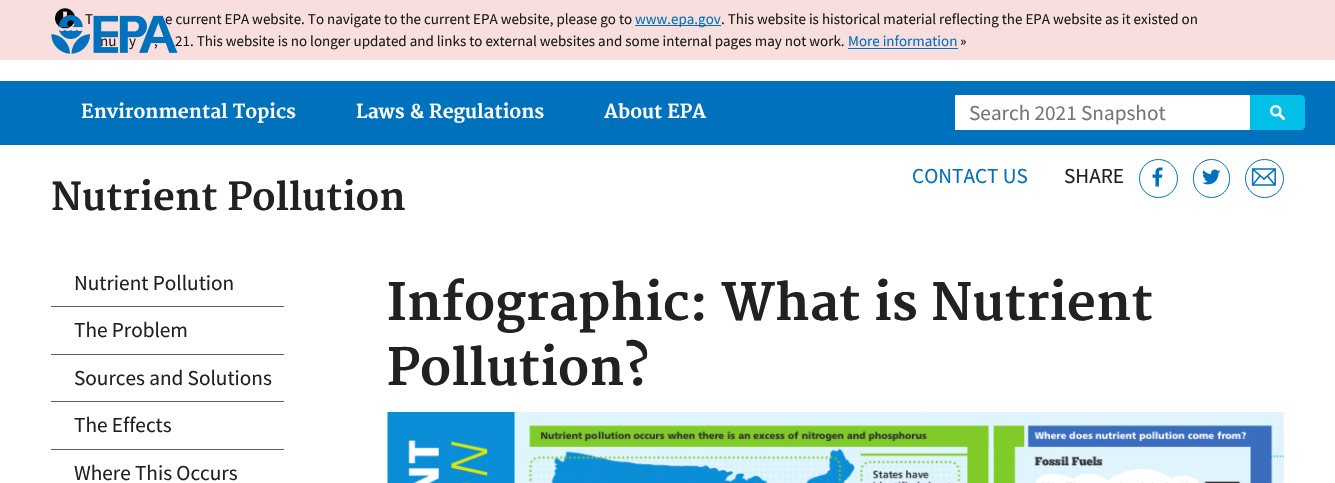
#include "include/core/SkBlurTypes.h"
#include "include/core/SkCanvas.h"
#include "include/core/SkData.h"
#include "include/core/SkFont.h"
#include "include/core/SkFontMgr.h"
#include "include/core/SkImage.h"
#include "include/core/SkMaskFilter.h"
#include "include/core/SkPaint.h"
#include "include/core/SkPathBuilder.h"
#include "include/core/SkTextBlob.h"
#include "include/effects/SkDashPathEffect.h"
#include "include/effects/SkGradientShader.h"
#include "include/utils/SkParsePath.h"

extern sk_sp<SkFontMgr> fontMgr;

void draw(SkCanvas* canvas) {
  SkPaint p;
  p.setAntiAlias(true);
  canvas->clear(SK_ColorWHITE);
  p.setColor(SkColorSetRGB(249, 222, 222));
  canvas->drawRect(SkRect::MakeLTRB(0, 0, 1335, 60), p);
  canvas->drawImageRect(SkImages::DeferredFromEncodedData(SkData::MakeFromFileName("images/1.png")), SkRect::MakeLTRB(55, 8, 75, 29), SkSamplingOptions());
  p.setColor(SkColorSetRGB(0, 113, 188));
  canvas->drawRect(SkRect::MakeLTRB(635, 25, 721, 26), p);
  canvas->drawRect(SkRect::MakeLTRB(848, 48, 958, 49), p);
  canvas->drawRect(SkRect::MakeLTRB(0, 81, 1335, 145), p);
  p.setColor(SK_ColorWHITE);
  canvas->drawRect(SkRect::MakeLTRB(956, 96, 1250, 129), p);
  p.setStyle(SkPaint::kStroke_Style);
  p.setStrokeWidth(1);
  canvas->drawRect(SkRect::MakeLTRB(955.5f, 95.5f, 1283.5f, 129.5f), p);
  p.setStyle(SkPaint::kFill_Style);
  p.setColor(SkColorSetRGB(2, 191, 231));
  canvas->drawPath(SkPathBuilder().moveTo(1250, 95).lineTo(1301, 95).cubicTo(1303, 95, 1305, 97, 1305, 99).lineTo(1305, 126).cubicTo(1305, 128, 1303, 130, 1301, 130).lineTo(1250, 130).close().detach(), p);
  canvas->drawImageRect(SkImages::DeferredFromEncodedData(SkData::MakeFromFileName("images/3.png")), SkRect::MakeLTRB(1270, 105, 1285, 120), SkSamplingOptions());
  p.setStyle(SkPaint::kStroke_Style);
  p.setColor(SkColorSetRGB(0, 113, 188));
  canvas->drawCircle(1158.5f, 178.5f, 19, p);
  canvas->drawImageRect(SkImages::DeferredFromEncodedData(SkData::MakeFromFileName("images/4.png")), SkRect::MakeLTRB(1152, 167, 1163, 187), SkSamplingOptions());
  canvas->drawRoundRect(SkRect::MakeLTRB(1193.5f, 159.5f, 1229.5f, 197.5f), 18, 18, p);
  canvas->drawImageRect(SkImages::DeferredFromEncodedData(SkData::MakeFromFileName("images/5.png")), SkRect::MakeLTRB(1202, 169, 1221, 185), SkSamplingOptions());
  canvas->drawCircle(1264.5f, 178.5f, 19, p);
  canvas->drawImageRect(SkImages::DeferredFromEncodedData(SkData::MakeFromFileName("images/6.png")), SkRect::MakeLTRB(1251, 168, 1276, 186), SkSamplingOptions());
  p.setStyle(SkPaint::kFill_Style);
  p.setColor(SkColorSetRGB(91, 97, 107));
  canvas->drawRect(SkRect::MakeLTRB(51, 306, 284, 307), p);
  canvas->drawRect(SkRect::MakeLTRB(51, 354, 284, 355), p);
  canvas->drawRect(SkRect::MakeLTRB(51, 401, 284, 402), p);
  canvas->drawRect(SkRect::MakeLTRB(51, 449, 284, 450), p);
  canvas->drawImageRect(SkImages::DeferredFromEncodedData(SkData::MakeFromFileName("images/7.png")), SkRect::MakeLTRB(387, 412, 1284, 483), SkSamplingOptions());
  SkFont font1(fontMgr->matchFamilyStyle("Source Sans Pro", SkFontStyle::Normal()), 15);
  font1.setSubpixel(true);
  p.setColor(SkColorSetRGB(27, 27, 27));
  canvas->drawString("T", 85, 24, font1, p);
  canvas->drawString("e current EPA website. To navigate to the current EPA website, please go to", 165, 24, font1, p);
  p.setColor(SkColorSetRGB(0, 113, 188));
  canvas->drawString("www.epa.gov", 635, 24, font1, p);
  p.setColor(SkColorSetRGB(27, 27, 27));
  canvas->drawString(". This website is historical material reflecting the EPA website as it existed on", 721, 24, font1, p);
  canvas->drawString("nu", 100, 46, font1, p);
  canvas->drawString("y", 129, 46, font1, p);
  canvas->drawString("21. This website is no longer updated and links to external websites and some internal pages may not work.", 175, 46, font1, p);
  p.setColor(SkColorSetRGB(0, 113, 188));
  canvas->drawString("More information", 848, 46, font1, p);
  p.setColor(SkColorSetRGB(27, 27, 27));
  canvas->drawString("»", 960, 46, font1, p);
  canvas->drawString(",", 154, 46, font1, p);
  SkFont font2(fontMgr->matchFamilyStyle("Merriweather", SkFontStyle::Bold()), 18.75f);
  font2.setSubpixel(true);
  p.setColor(SK_ColorWHITE);
  canvas->drawString("Environmental Topics", 81, 118, font2, p);
  canvas->drawString("Laws & Regulations", 356, 118, font2, p);
  canvas->drawString("About EPA", 604, 118, font2, p);
  canvas->drawImageRect(SkImages::DeferredFromEncodedData(SkData::MakeFromFileName("images/2.png")), SkRect::MakeLTRB(51, 15, 178, 54), SkSamplingOptions());
  SkFont font3(fontMgr->matchFamilyStyle("Source Sans Pro", SkFontStyle::Normal()), 21.25f);
  font3.setSubpixel(true);
  p.setColor(SkColorSetRGB(117, 117, 117));
  canvas->drawString("Search 2021 Snapshot", 969, 120, font3, p);
  p.setColor(SkColorSetRGB(0, 113, 188));
  canvas->drawString("CONTACT US", 912, 183, font3, p);
  p.setColor(SkColorSetRGB(33, 33, 33));
  canvas->drawString("SHARE", 1064, 183, font3, p);
  SkFont font4(fontMgr->matchFamilyStyle("Merriweather", SkFontStyle::Bold()), 37.5f);
  font4.setSubpixel(true);
  canvas->drawString("Nutrient Pollution", 51, 210, font4, p);
  canvas->drawString("Nutrient Pollution", 74, 290, font3, p);
  canvas->drawString("The Problem", 74, 337, font3, p);
  canvas->drawString("Sources and Solutions", 74, 385, font3, p);
  canvas->drawString("The Effects", 74, 432, font3, p);
  canvas->drawString("Where This Occurs", 74, 480, font3, p);
  SkFont font5(fontMgr->matchFamilyStyle("Merriweather", SkFontStyle::Bold()), 50);
  font5.setSubpixel(true);
  canvas->drawString("Infographic: What is Nutrient", 387, 320, font5, p);
  canvas->drawString("Pollution?", 387, 385, font5, p);
}
